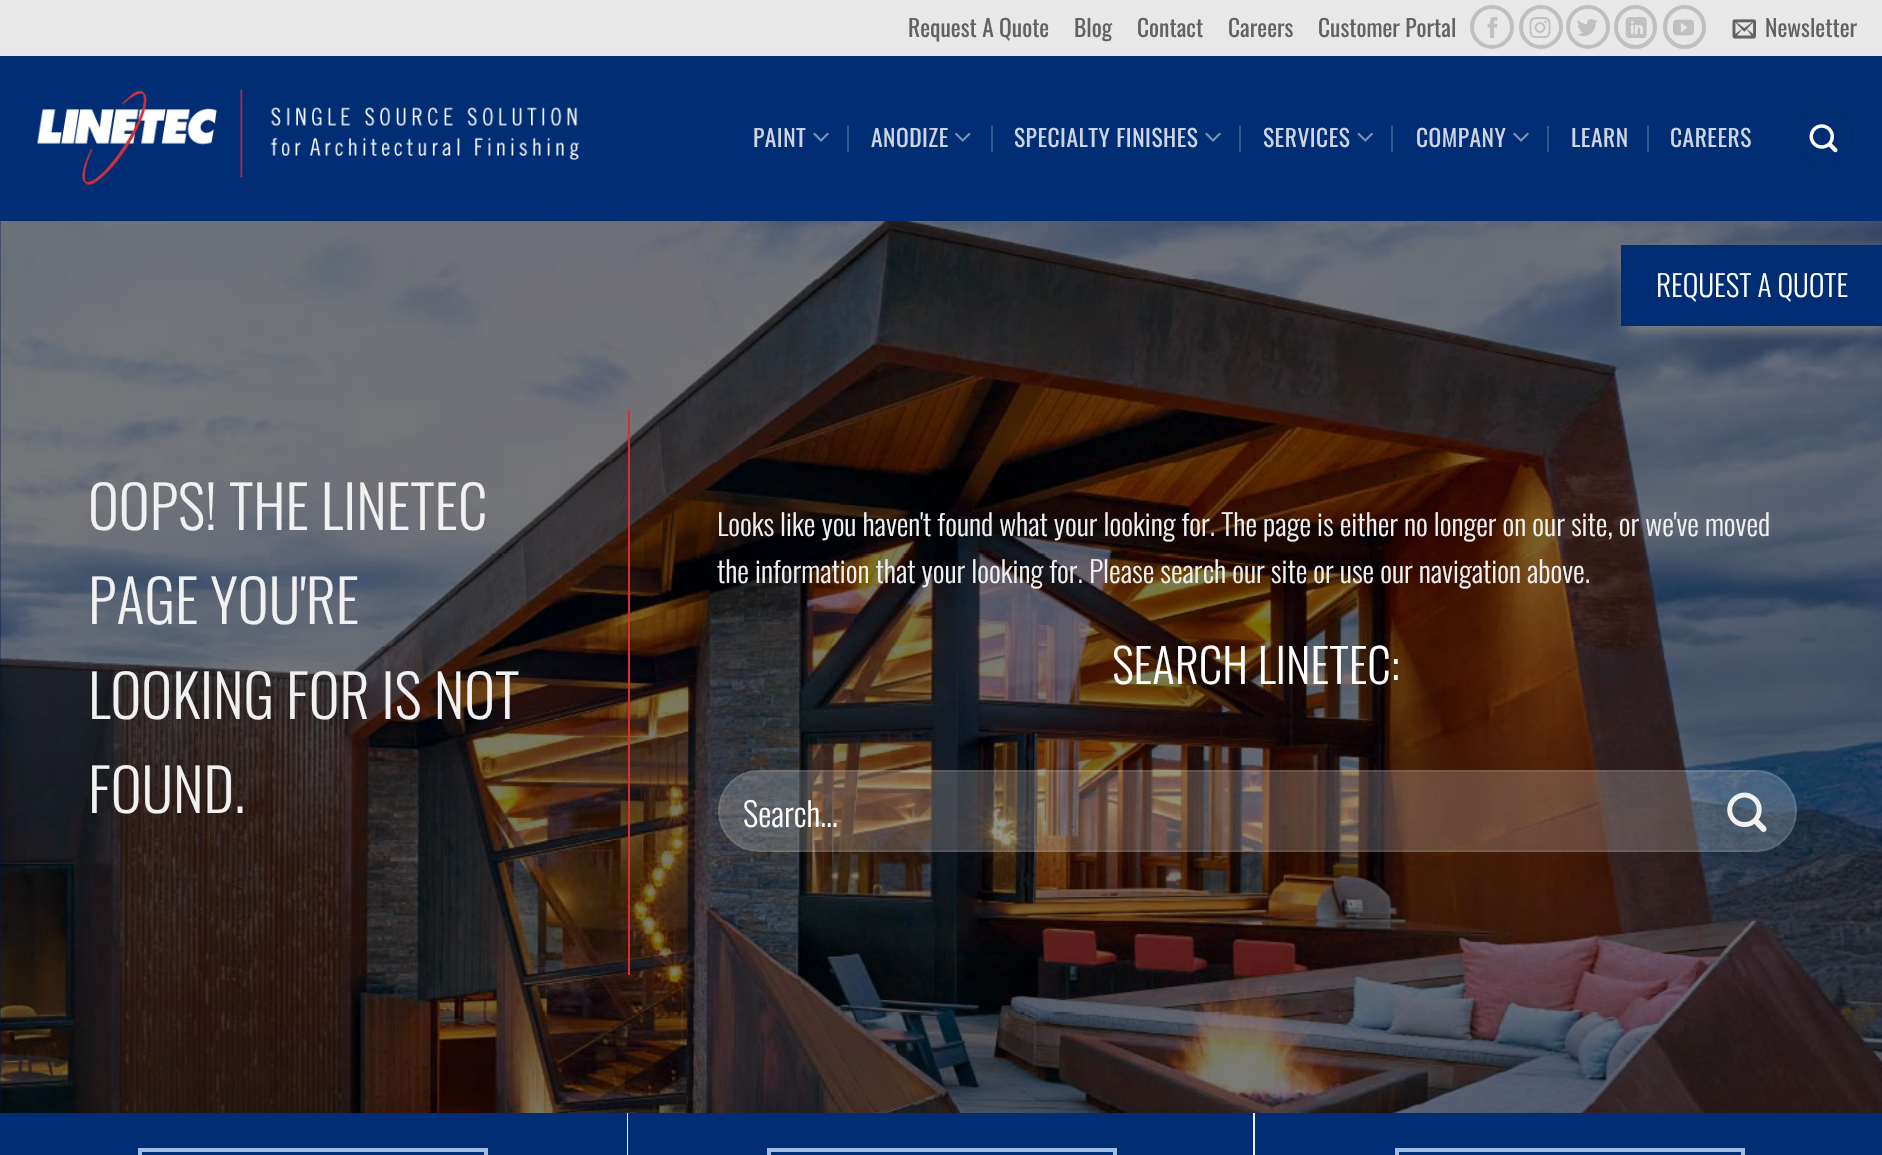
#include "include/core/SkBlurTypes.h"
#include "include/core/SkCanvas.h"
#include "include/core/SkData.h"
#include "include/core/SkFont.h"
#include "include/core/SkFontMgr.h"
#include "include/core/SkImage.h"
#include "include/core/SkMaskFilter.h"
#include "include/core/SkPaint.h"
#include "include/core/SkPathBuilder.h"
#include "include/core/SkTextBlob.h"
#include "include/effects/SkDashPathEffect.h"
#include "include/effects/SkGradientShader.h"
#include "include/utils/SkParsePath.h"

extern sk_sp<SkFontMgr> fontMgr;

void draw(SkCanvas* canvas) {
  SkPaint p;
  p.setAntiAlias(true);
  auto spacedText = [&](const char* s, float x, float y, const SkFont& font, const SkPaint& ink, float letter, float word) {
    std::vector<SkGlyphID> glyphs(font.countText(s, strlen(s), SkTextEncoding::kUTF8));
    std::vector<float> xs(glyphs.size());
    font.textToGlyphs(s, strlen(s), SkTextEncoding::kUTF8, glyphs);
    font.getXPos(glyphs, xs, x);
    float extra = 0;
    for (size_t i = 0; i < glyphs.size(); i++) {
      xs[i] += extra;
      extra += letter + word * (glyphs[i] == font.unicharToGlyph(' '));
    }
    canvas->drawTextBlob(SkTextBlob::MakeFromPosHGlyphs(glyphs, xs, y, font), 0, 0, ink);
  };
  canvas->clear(SK_ColorWHITE);
  p.setColor(SkColorSetRGB(232, 232, 232));
  canvas->drawRect(SkRect::MakeLTRB(0, 0, 1882, 56), p);
  p.setStyle(SkPaint::kStroke_Style);
  p.setStrokeWidth(4);
  p.setColor(SkColorSetRGB(192, 192, 192));
  canvas->drawCircle(1492, 27, 20, p);
  canvas->drawImageRect(SkImages::DeferredFromEncodedData(SkData::MakeFromFileName("images/1.png")), SkRect::MakeLTRB(1487, 17, 1498, 38), SkSamplingOptions());
  canvas->drawCircle(1541, 27, 20, p);
  canvas->drawImageRect(SkImages::DeferredFromEncodedData(SkData::MakeFromFileName("images/2.png")), SkRect::MakeLTRB(1529, 17, 1551, 38), SkSamplingOptions());
  canvas->drawCircle(1588, 27, 20, p);
  canvas->drawImageRect(SkImages::DeferredFromEncodedData(SkData::MakeFromFileName("images/3.png")), SkRect::MakeLTRB(1577, 19, 1598, 36), SkSamplingOptions());
  canvas->drawRoundRect(SkRect::MakeLTRB(1616, 7, 1655, 47), 19.5f, 19.5f, p);
  canvas->drawImageRect(SkImages::DeferredFromEncodedData(SkData::MakeFromFileName("images/4.png")), SkRect::MakeLTRB(1625, 17, 1647, 38), SkSamplingOptions());
  canvas->drawRoundRect(SkRect::MakeLTRB(1665, 7, 1704, 47), 19.5f, 19.5f, p);
  canvas->drawImageRect(SkImages::DeferredFromEncodedData(SkData::MakeFromFileName("images/5.png")), SkRect::MakeLTRB(1673, 19, 1694, 36), SkSamplingOptions());
  canvas->drawImageRect(SkImages::DeferredFromEncodedData(SkData::MakeFromFileName("images/6.png")), SkRect::MakeLTRB(1732, 19, 1756, 39), SkSamplingOptions());
  p.setStyle(SkPaint::kFill_Style);
  p.setColor(SkColorSetRGB(0, 53, 136));
  canvas->drawPath(SkPathBuilder().moveTo(0, 168).lineTo(0, 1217).lineTo(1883, 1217).lineTo(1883, 168).lineTo(993, 168).lineTo(942, 220).lineTo(890, 168).close().detach(), p);
  canvas->drawImageRect(SkImages::DeferredFromEncodedData(SkData::MakeFromFileName("images/12.png")), SkRect::MakeLTRB(0, 221, 1882, 1113), SkSamplingOptions());
  p.setColor(SkColorSetARGB(133, 0, 0, 0));
  canvas->drawPath(SkPathBuilder().moveTo(0, 168).lineTo(0, 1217).lineTo(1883, 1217).lineTo(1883, 168).lineTo(993, 168).lineTo(942, 220).lineTo(890, 168).close().detach(), p);
  p.setColor(SkColorSetRGB(0, 45, 116));
  canvas->drawRect(SkRect::MakeLTRB(0, 56, 1882, 221), p);
  canvas->drawImageRect(SkImages::DeferredFromEncodedData(SkData::MakeFromFileName("images/7.png")), SkRect::MakeLTRB(37, 89, 580, 185), SkSamplingOptions());
  canvas->drawImageRect(SkImages::DeferredFromEncodedData(SkData::MakeFromFileName("images/8.png")), SkRect::MakeLTRB(813, 132, 829, 142), SkSamplingOptions());
  p.setColor(SkColorSetRGB(51, 87, 144));
  canvas->drawRect(SkRect::MakeLTRB(847, 126, 849, 152), p);
  canvas->drawImageRect(SkImages::DeferredFromEncodedData(SkData::MakeFromFileName("images/9.png")), SkRect::MakeLTRB(955, 132, 971, 142), SkSamplingOptions());
  canvas->drawRect(SkRect::MakeLTRB(991, 126, 993, 152), p);
  canvas->drawImageRect(SkImages::DeferredFromEncodedData(SkData::MakeFromFileName("images/8.png")), SkRect::MakeLTRB(1205, 132, 1221, 142), SkSamplingOptions());
  canvas->drawRect(SkRect::MakeLTRB(1239, 126, 1241, 152), p);
  canvas->drawImageRect(SkImages::DeferredFromEncodedData(SkData::MakeFromFileName("images/10.png")), SkRect::MakeLTRB(1357, 132, 1373, 142), SkSamplingOptions());
  canvas->drawRect(SkRect::MakeLTRB(1391, 126, 1393, 152), p);
  canvas->drawImageRect(SkImages::DeferredFromEncodedData(SkData::MakeFromFileName("images/8.png")), SkRect::MakeLTRB(1513, 132, 1529, 142), SkSamplingOptions());
  canvas->drawRect(SkRect::MakeLTRB(1547, 126, 1549, 152), p);
  canvas->drawRect(SkRect::MakeLTRB(1647, 126, 1649, 152), p);
  p.setStyle(SkPaint::kStroke_Style);
  p.setStrokeWidth(2);
  p.setColor(SkColorSetRGB(0, 43, 110));
  canvas->drawRoundRect(SkRect::MakeLTRB(1797, 108, 1852, 167), 27.5f, 27.5f, p);
  canvas->drawImageRect(SkImages::DeferredFromEncodedData(SkData::MakeFromFileName("images/11.png")), SkRect::MakeLTRB(1809, 124, 1838, 153), SkSamplingOptions());
  p.setStyle(SkPaint::kFill_Style);
  p.setColor(SkColorSetRGB(136, 136, 136));
  p.setMaskFilter(SkMaskFilter::MakeBlur(kNormal_SkBlurStyle, 7));
  canvas->drawRect(SkRect::MakeLTRB(1626, 250, 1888, 331), p);
  p.setMaskFilter(nullptr);
  p.setColor(SkColorSetRGB(0, 45, 116));
  canvas->drawRect(SkRect::MakeLTRB(1621, 245, 1882, 326), p);
  p.setColor(SkColorSetRGB(207, 51, 57));
  canvas->drawRect(SkRect::MakeLTRB(628, 410, 630, 975), p);
  p.setColor(SkColorSetARGB(51, 255, 255, 255));
  canvas->drawRoundRect(SkRect::MakeLTRB(718, 770, 1797, 852), 41, 41, p);
  p.setStyle(SkPaint::kStroke_Style);
  p.setColor(SkColorSetARGB(23, 255, 255, 255));
  canvas->drawRoundRect(SkRect::MakeLTRB(719, 771, 1796, 851), 40, 40, p);
  canvas->drawImageRect(SkImages::DeferredFromEncodedData(SkData::MakeFromFileName("images/13.png")), SkRect::MakeLTRB(1727, 792, 1767, 832), SkSamplingOptions());
  p.setStyle(SkPaint::kFill_Style);
  p.setColor(SkColorSetRGB(236, 236, 236));
  canvas->drawRect(SkRect::MakeLTRB(627, 1113, 628, 1155), p);
  p.setColor(SkColorSetRGB(0, 45, 116));
  canvas->drawRect(SkRect::MakeLTRB(0, 1113, 627, 1155), p);
  p.setStyle(SkPaint::kStroke_Style);
  p.setStrokeWidth(4);
  p.setColor(SkColorSetRGB(158, 190, 229));
  canvas->drawRect(SkRect::MakeLTRB(140, 1150, 486, 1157), p);
  p.setStyle(SkPaint::kFill_Style);
  p.setColor(SkColorSetRGB(236, 236, 236));
  canvas->drawRect(SkRect::MakeLTRB(1253, 1113, 1255, 1155), p);
  p.setColor(SkColorSetRGB(0, 45, 116));
  canvas->drawRect(SkRect::MakeLTRB(628, 1113, 1253, 1155), p);
  p.setStyle(SkPaint::kStroke_Style);
  p.setColor(SkColorSetRGB(158, 190, 229));
  canvas->drawRect(SkRect::MakeLTRB(769, 1150, 1115, 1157), p);
  p.setStyle(SkPaint::kFill_Style);
  p.setColor(SkColorSetRGB(0, 45, 116));
  canvas->drawRect(SkRect::MakeLTRB(1255, 1113, 1882, 1155), p);
  p.setStyle(SkPaint::kStroke_Style);
  p.setColor(SkColorSetRGB(158, 190, 229));
  canvas->drawRect(SkRect::MakeLTRB(1397, 1150, 1743, 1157), p);
  SkFont font1(fontMgr->matchFamilyStyle("Oswald", SkFontStyle::Normal()), 23.5f);
  font1.setSubpixel(true);
  p.setStyle(SkPaint::kFill_Style);
  p.setColor(SkColorSetRGB(98, 98, 98));
  canvas->drawString("Request A Quote", 908, 37, font1, p);
  canvas->drawString("Blog", 1074, 37, font1, p);
  canvas->drawString("Contact", 1137, 37, font1, p);
  canvas->drawString("Careers", 1228, 37, font1, p);
  canvas->drawString("Customer Portal", 1318, 37, font1, p);
  canvas->drawString("Newsletter", 1765, 37, font1, p);
  p.setColor(SkColorSetRGB(204, 213, 227));
  spacedText("PAINT", 753, 147, font1, p, 0.5f, 0);
  spacedText("ANODIZE", 871, 147, font1, p, 0.5f, 0);
  spacedText("SPECIALTY FINISHES", 1014, 147, font1, p, 0.5f, 0);
  spacedText("SERVICES", 1263, 147, font1, p, 0.5f, 0);
  spacedText("COMPANY", 1416, 147, font1, p, 0.5f, 0);
  spacedText("LEARN", 1571, 147, font1, p, 0.5f, 0);
  spacedText("CAREERS", 1670, 147, font1, p, 0.5f, 0);
  SkFont font2(fontMgr->matchFamilyStyle("Oswald", SkFontStyle(300, SkFontStyle::kNormal_Width, SkFontStyle::kUpright_Slant)), 29.4f);
  font2.setSubpixel(true);
  p.setColor(SK_ColorWHITE);
  canvas->drawString("REQUEST A QUOTE", 1656, 297, font2, p);
  SkFont font3(fontMgr->matchFamilyStyle("Oswald", SkFontStyle(300, SkFontStyle::kNormal_Width, SkFontStyle::kUpright_Slant)), 58.75f);
  font3.setSubpixel(true);
  p.setColor(SkColorSetRGB(241, 241, 241));
  canvas->drawString("OOPS! THE LINETEC", 88, 530, font3, p);
  canvas->drawString("PAGE YOU'RE", 88, 624, font3, p);
  canvas->drawString("LOOKING FOR IS NOT", 88, 719, font3, p);
  canvas->drawString("FOUND.", 88, 813, font3, p);
  canvas->drawString("Looks like you haven't found what your looking for. The page is either no longer on our site, or we've moved", 717, 536, font2, p);
  canvas->drawString("the information that your looking for. Please search our site or use our navigation above.", 717, 583, font2, p);
  SkFont font4(fontMgr->matchFamilyStyle("Oswald", SkFontStyle(300, SkFontStyle::kNormal_Width, SkFontStyle::kUpright_Slant)), 47);
  font4.setSubpixel(true);
  p.setColor(SK_ColorWHITE);
  canvas->drawString("SEARCH LINETEC:", 1112, 684, font4, p);
  SkFont font5(fontMgr->matchFamilyStyle("Oswald", SkFontStyle(300, SkFontStyle::kNormal_Width, SkFontStyle::kUpright_Slant)), 33);
  font5.setSubpixel(true);
  canvas->drawString("Search…", 743, 827, font5, p);
}
